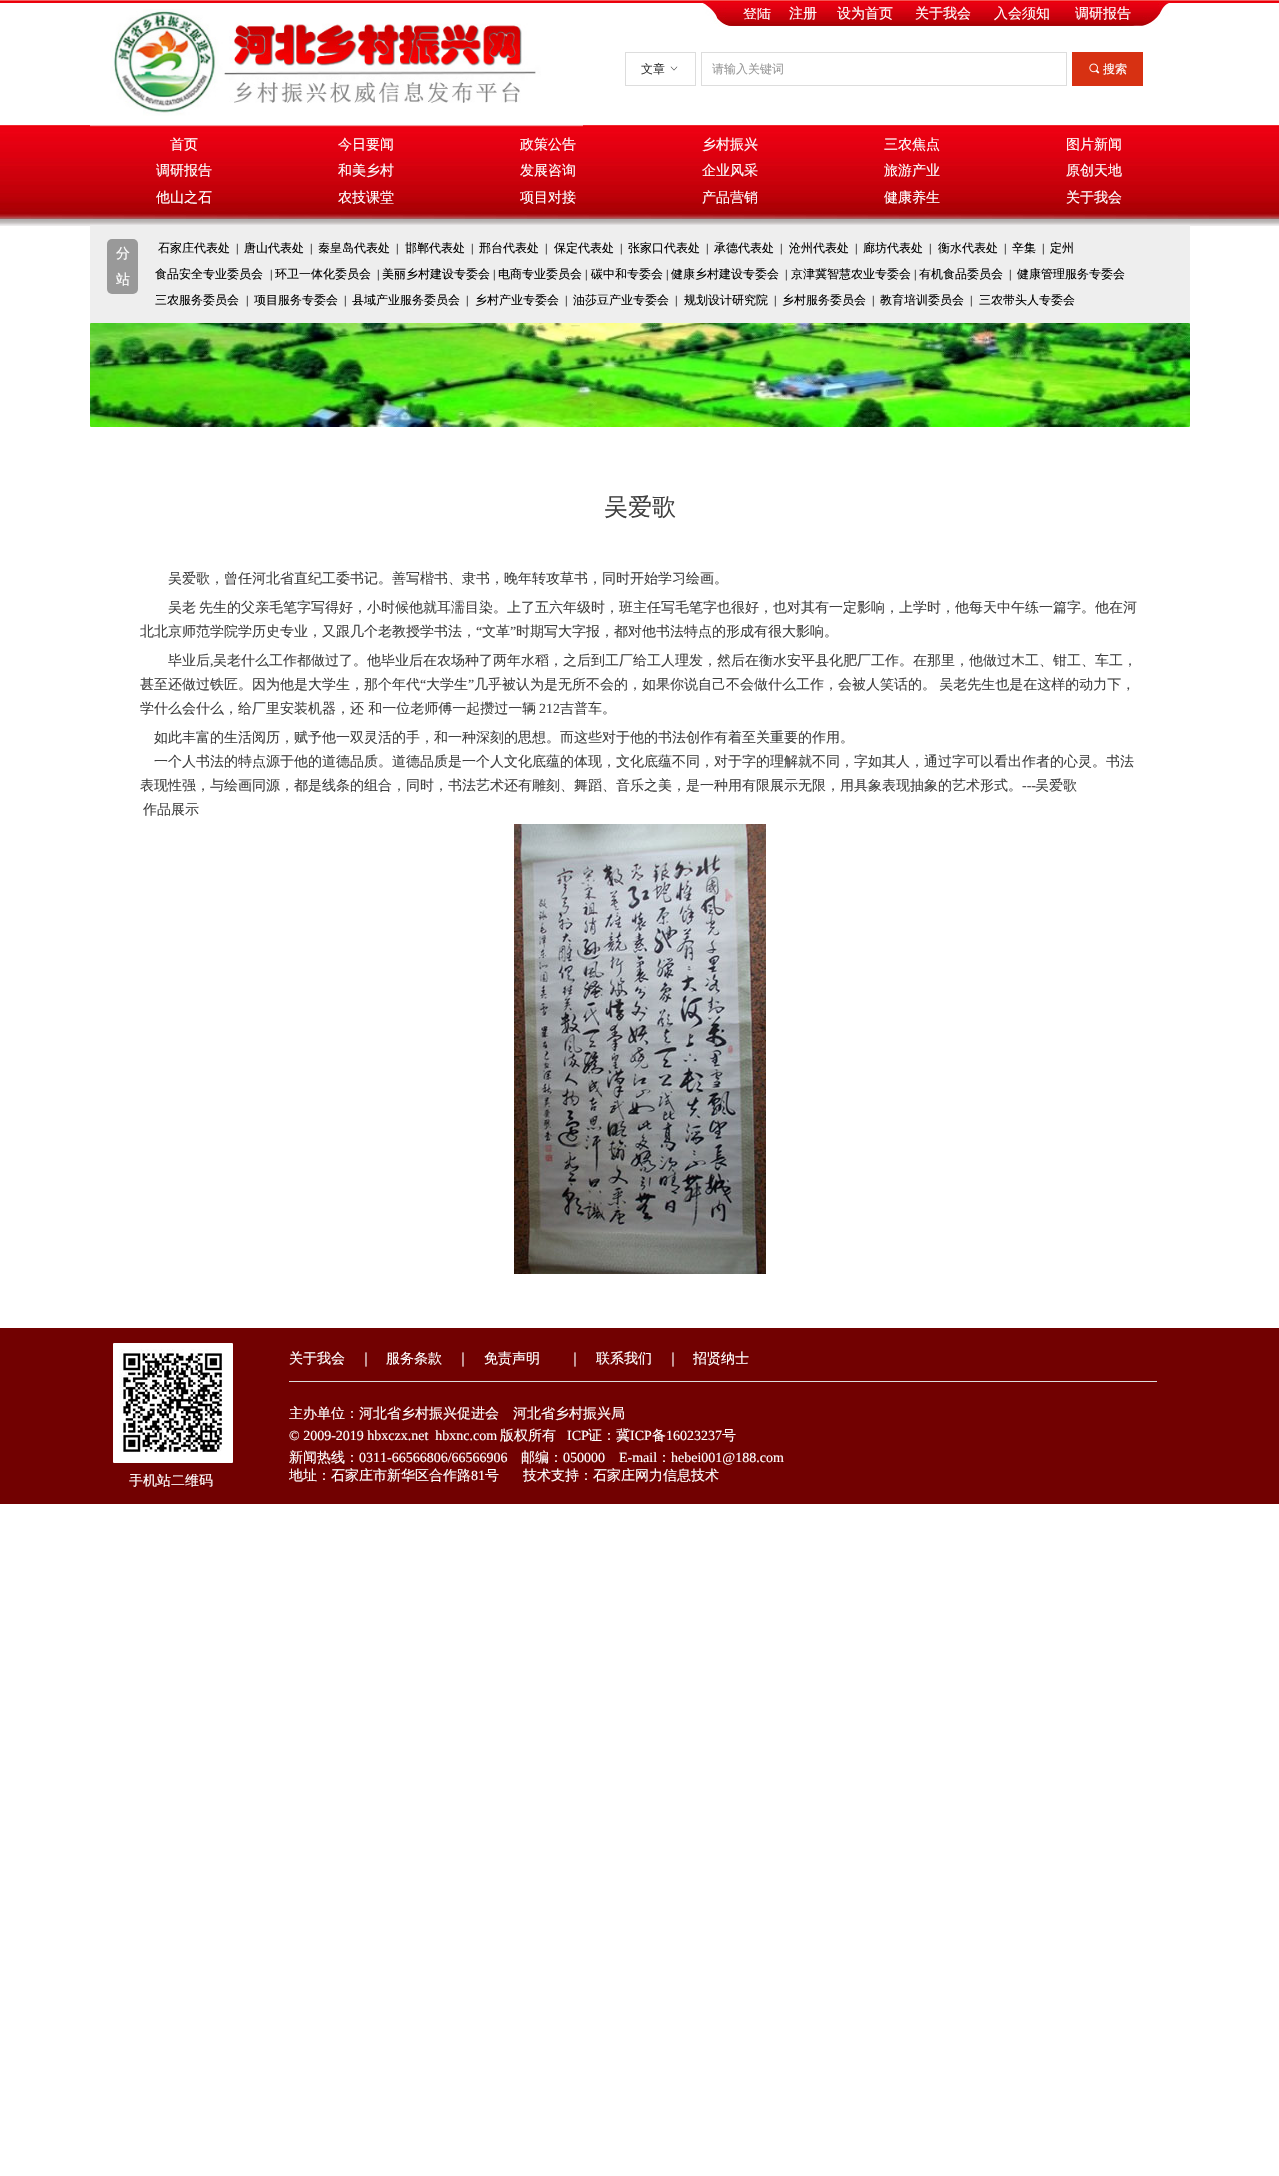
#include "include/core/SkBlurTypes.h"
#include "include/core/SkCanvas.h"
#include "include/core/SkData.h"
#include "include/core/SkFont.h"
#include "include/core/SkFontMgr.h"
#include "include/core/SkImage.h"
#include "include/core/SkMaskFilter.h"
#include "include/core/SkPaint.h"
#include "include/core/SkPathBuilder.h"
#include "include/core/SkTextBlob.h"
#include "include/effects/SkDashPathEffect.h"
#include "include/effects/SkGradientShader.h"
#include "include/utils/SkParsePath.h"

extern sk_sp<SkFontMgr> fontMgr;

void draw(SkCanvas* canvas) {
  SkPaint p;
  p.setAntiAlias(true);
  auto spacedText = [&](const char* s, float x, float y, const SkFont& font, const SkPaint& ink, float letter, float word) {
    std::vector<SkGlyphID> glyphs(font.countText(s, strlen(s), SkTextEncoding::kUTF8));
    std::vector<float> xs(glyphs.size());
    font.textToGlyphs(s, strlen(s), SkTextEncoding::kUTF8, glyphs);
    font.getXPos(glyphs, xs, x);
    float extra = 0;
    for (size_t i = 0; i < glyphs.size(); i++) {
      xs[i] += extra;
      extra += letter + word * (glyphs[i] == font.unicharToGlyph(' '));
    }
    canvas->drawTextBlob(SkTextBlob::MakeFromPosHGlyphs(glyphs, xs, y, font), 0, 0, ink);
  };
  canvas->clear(SK_ColorWHITE);
  canvas->drawImageRect(SkImages::DeferredFromEncodedData(SkData::MakeFromFileName("images/1.png")), SkRect::MakeLTRB(0, 0, 1279, 226), SkSamplingOptions());
  canvas->drawImageRect(SkImages::DeferredFromEncodedData(SkData::MakeFromFileName("images/2.png")), SkRect::MakeLTRB(702, 0, 1170, 27), SkSamplingOptions());
  canvas->drawImageRect(SkImages::DeferredFromEncodedData(SkData::MakeFromFileName("images/3.png")), SkRect::MakeLTRB(90, 9, 583, 128), SkSamplingOptions());
  p.setStyle(SkPaint::kStroke_Style);
  p.setStrokeWidth(1);
  p.setColor(SkColorSetRGB(221, 221, 221));
  canvas->drawRect(SkRect::MakeLTRB(625.5f, 52.5f, 695.5f, 85.5f), p);
  canvas->drawImageRect(SkImages::DeferredFromEncodedData(SkData::MakeFromFileName("images/4.png")), SkRect::MakeLTRB(670, 66, 678, 71), SkSamplingOptions());
  canvas->drawRect(SkRect::MakeLTRB(701.5f, 52.5f, 1066.5f, 85.5f), p);
  p.setStyle(SkPaint::kFill_Style);
  p.setColor(SkColorSetRGB(215, 49, 18));
  canvas->drawRect(SkRect::MakeLTRB(1072, 52, 1143, 86), p);
  canvas->drawImageRect(SkImages::DeferredFromEncodedData(SkData::MakeFromFileName("images/5.png")), SkRect::MakeLTRB(1089, 63, 1100, 74), SkSamplingOptions());
  p.setColor(SkColorSetRGB(238, 238, 238));
  canvas->drawRect(SkRect::MakeLTRB(90, 225, 1190, 324), p);
  p.setColor(SkColorSetRGB(153, 153, 153));
  canvas->drawRoundRect(SkRect::MakeLTRB(107, 239, 138, 294), 5, 5, p);
  canvas->drawImageRect(SkImages::DeferredFromEncodedData(SkData::MakeFromFileName("images/6.png")), SkRect::MakeLTRB(90, 323, 1190, 427), SkSamplingOptions());
  canvas->drawImageRect(SkImages::DeferredFromEncodedData(SkData::MakeFromFileName("images/7.png")), SkRect::MakeLTRB(514, 824, 766, 1274), SkSamplingOptions());
  p.setColor(SkColorSetRGB(114, 1, 1));
  canvas->drawRect(SkRect::MakeLTRB(0, 1328, 1279, 1504), p);
  canvas->drawImageRect(SkImages::DeferredFromEncodedData(SkData::MakeFromFileName("images/8.png")), SkRect::MakeLTRB(113, 1343, 233, 1463), SkSamplingOptions());
  p.setColor(SkColorSetRGB(221, 221, 221));
  canvas->drawRect(SkRect::MakeLTRB(289, 1381, 1157, 1382), p);
  canvas->save();
  canvas->clipRect(SkRect::MakeLTRB(740, 8, 774, 20));
  SkFont font1(fontMgr->matchFamilyStyle("WenQuanYi Zen Hei", SkFontStyle(500, SkFontStyle::kNormal_Width, SkFontStyle::kUpright_Slant)), 14);
  font1.setSubpixel(true);
  p.setColor(SK_ColorWHITE);
  canvas->drawString("登陆", 743, 18, font1, p);
  canvas->restore();
  canvas->drawString("注册", 789, 18, font1, p);
  canvas->drawString("设为首页", 837, 18, font1, p);
  canvas->drawString("关于我会", 915, 18, font1, p);
  canvas->drawString("入会须知", 994, 18, font1, p);
  canvas->drawString("调研报告", 1075, 18, font1, p);
  SkFont font2(fontMgr->matchFamilyStyle("WenQuanYi Zen Hei", SkFontStyle(500, SkFontStyle::kNormal_Width, SkFontStyle::kUpright_Slant)), 12);
  font2.setSubpixel(true);
  p.setColor(SkColorSetRGB(51, 51, 51));
  canvas->drawString("文章", 641, 73, font2, p);
  p.setColor(SkColorSetRGB(153, 153, 153));
  canvas->drawString("请输入关键词", 712, 73, font2, p);
  p.setColor(SK_ColorWHITE);
  canvas->drawString("搜索", 1103, 73, font2, p);
  canvas->drawString("首页", 170, 149, font1, p);
  canvas->drawString("今日要闻", 338, 149, font1, p);
  canvas->drawString("政策公告", 520, 149, font1, p);
  canvas->drawString("乡村振兴", 702, 149, font1, p);
  canvas->drawString("三农焦点", 884, 149, font1, p);
  canvas->drawString("图片新闻", 1066, 149, font1, p);
  canvas->drawString("调研报告", 156, 175, font1, p);
  canvas->drawString("和美乡村", 338, 175, font1, p);
  canvas->drawString("发展咨询", 520, 175, font1, p);
  canvas->drawString("企业风采", 702, 175, font1, p);
  canvas->drawString("旅游产业", 884, 175, font1, p);
  canvas->drawString("原创天地", 1066, 175, font1, p);
  canvas->drawString("他山之石", 156, 202, font1, p);
  canvas->drawString("农技课堂", 338, 202, font1, p);
  canvas->drawString("项目对接", 520, 202, font1, p);
  canvas->drawString("产品营销", 702, 202, font1, p);
  canvas->drawString("健康养生", 884, 202, font1, p);
  canvas->drawString("关于我会", 1066, 202, font1, p);
  canvas->drawString("分", 116, 258, font1, p);
  canvas->save();
  canvas->clipRect(SkRect::MakeLTRB(116, 247, 135, 286));
  canvas->drawString("站", 116, 284, font1, p);
  canvas->restore();
  p.setColor(SK_ColorBLACK);
  canvas->drawString("石家庄代表处", 158, 252, font2, p);
  SkFont font3(fontMgr->matchFamilyStyle("Liberation Serif", SkFontStyle::Normal()), 12);
  font3.setSubpixel(true);
  canvas->drawString("|", 236, 252, font3, p);
  canvas->drawString("唐山代表处", 244, 252, font2, p);
  canvas->drawString("|", 310, 252, font3, p);
  canvas->drawString("秦皇岛代表处", 318, 252, font2, p);
  canvas->drawString("|", 396, 252, font3, p);
  canvas->drawString("邯郸代表处", 405, 252, font2, p);
  canvas->drawString("|", 471, 252, font3, p);
  canvas->drawString("邢台代表处", 479, 252, font2, p);
  canvas->drawString("|", 545, 252, font3, p);
  canvas->drawString("保定代表处", 554, 252, font2, p);
  canvas->drawString("|", 620, 252, font3, p);
  canvas->drawString("张家口代表处", 628, 252, font2, p);
  canvas->drawString("|", 706, 252, font3, p);
  canvas->drawString("承德代表处", 714, 252, font2, p);
  canvas->drawString("|", 780, 252, font3, p);
  canvas->drawString("沧州代表处", 789, 252, font2, p);
  canvas->drawString("|", 855, 252, font3, p);
  canvas->drawString("廊坊代表处", 863, 252, font2, p);
  canvas->drawString("|", 929, 252, font3, p);
  canvas->drawString("衡水代表处", 938, 252, font2, p);
  canvas->drawString("|", 1004, 252, font3, p);
  canvas->drawString("辛集", 1012, 252, font2, p);
  canvas->drawString("|", 1042, 252, font3, p);
  canvas->drawString("定州", 1050, 252, font2, p);
  canvas->drawString("食品安全专业委员会", 155, 278, font2, p);
  canvas->drawString("|", 270, 278, font3, p);
  canvas->drawString("环卫一体化委员会", 275, 278, font2, p);
  canvas->drawString("|", 377, 278, font3, p);
  canvas->drawString("美丽乡村建设专委会", 382, 278, font2, p);
  canvas->drawString("|", 493, 278, font3, p);
  canvas->drawString("电商专业委员会", 498, 278, font2, p);
  canvas->drawString("|", 585, 278, font3, p);
  canvas->drawString("碳中和专委会", 591, 278, font2, p);
  canvas->drawString("|", 666, 278, font3, p);
  canvas->drawString("健康乡村建设专委会", 671, 278, font2, p);
  canvas->drawString("|", 785, 278, font3, p);
  canvas->drawString("京津冀智慧农业专委会", 791, 278, font2, p);
  canvas->drawString("|", 914, 278, font3, p);
  canvas->drawString("有机食品委员会", 919, 278, font2, p);
  canvas->drawString("|", 1009, 278, font3, p);
  canvas->drawString("健康管理服务专委会", 1017, 278, font2, p);
  canvas->drawString("三农服务委员会", 155, 304, font2, p);
  canvas->drawString("|", 246, 304, font3, p);
  canvas->drawString("项目服务专委会", 254, 304, font2, p);
  canvas->drawString("|", 344, 304, font3, p);
  canvas->drawString("县域产业服务委员会", 352, 304, font2, p);
  canvas->drawString("|", 466, 304, font3, p);
  canvas->drawString("乡村产业专委会", 475, 304, font2, p);
  canvas->drawString("|", 565, 304, font3, p);
  canvas->drawString("油莎豆产业专委会", 573, 304, font2, p);
  canvas->drawString("|", 675, 304, font3, p);
  canvas->drawString("规划设计研究院", 684, 304, font2, p);
  canvas->drawString("|", 774, 304, font3, p);
  canvas->drawString("乡村服务委员会", 782, 304, font2, p);
  canvas->drawString("|", 872, 304, font3, p);
  canvas->drawString("教育培训委员会", 880, 304, font2, p);
  canvas->drawString("|", 970, 304, font3, p);
  canvas->drawString("三农带头人专委会", 979, 304, font2, p);
  SkFont font4(fontMgr->matchFamilyStyle("WenQuanYi Zen Hei", SkFontStyle(500, SkFontStyle::kNormal_Width, SkFontStyle::kUpright_Slant)), 24);
  font4.setSubpixel(true);
  p.setColor(SkColorSetRGB(64, 64, 64));
  canvas->drawString("吴爱歌", 604, 515, font4, p);
  canvas->drawString("吴爱歌，曾任河北省直纪工委书记。善写楷书、隶书，晚年转攻草书，同时开始学习绘画。", 168, 583, font1, p);
  canvas->drawString("吴老", 168, 612, font1, p);
  canvas->drawString("先生的父亲毛笔字写得好，小时候他就耳濡目染。上了五六年级时，班主任写毛笔字也很好，也对其有一定影响，上学时，他每天中午练一篇字。他在河", 199, 612, font1, p);
  canvas->drawString("北北京师范学院学历史专业，又跟几个老教授学书法，", 140, 636, font1, p);
  SkFont font5(fontMgr->matchFamilyStyle("Liberation Serif", SkFontStyle::Normal()), 14);
  font5.setSubpixel(true);
  canvas->drawString("“", 476, 636, font5, p);
  canvas->drawString("文革", 482, 636, font1, p);
  canvas->drawString("”", 510, 636, font5, p);
  canvas->drawString("时期写大字报，都对他书法特点的形成有很大影响。", 516, 636, font1, p);
  canvas->drawString("毕业后", 168, 665, font1, p);
  canvas->drawString(",", 210, 665, font5, p);
  canvas->drawString("吴老什么工作都做过了。他毕业后在农场种了两年水稻，之后到工厂给工人理发，然后在衡水安平县化肥厂工作。在那里，他做过木工、钳工、车工，", 213, 665, font1, p);
  canvas->drawString("甚至还做过铁匠。因为他是大学生，那个年代", 140, 689, font1, p);
  canvas->drawString("“", 420, 689, font5, p);
  canvas->drawString("大学生", 426, 689, font1, p);
  canvas->drawString("”", 468, 689, font5, p);
  spacedText("几乎被认为是无所不会的，如果你说自己不会做什么工作，会被人笑话的。 吴老先生也是在这样的动力下，", 474, 689, font1, p, 0, -1);
  canvas->drawString("学什么会什么，给厂里安装机器，还 和一位老师傅一起攒过一辆", 140, 713, font1, p);
  canvas->drawString("212", 539, 713, font5, p);
  canvas->drawString("吉普车。", 560, 713, font1, p);
  canvas->drawString("如此丰富的生活阅历，赋予他一双灵活的手，和一种深刻的思想。而这些对于他的书法创作有着至关重要的作用。", 154, 742, font1, p);
  canvas->drawString("一个人书法的特点源于他的道德品质。道德品质是一个人文化底蕴的体现，文化底蕴不同，对于字的理解就不同，字如其人，通过字可以看出作者的心灵。书法", 154, 766, font1, p);
  canvas->drawString("表现性强，与绘画同源，都是线条的组合，同时，书法艺术还有雕刻、舞蹈、音乐之美，是一种用有限展示无限，用具象表现抽象的艺术形式。", 140, 790, font1, p);
  canvas->drawString("---", 1022, 790, font5, p);
  canvas->drawString("吴爱歌", 1035, 790, font1, p);
  canvas->drawString("作品展示", 143, 814, font1, p);
  p.setColor(SK_ColorWHITE);
  canvas->drawString("关于我会", 289, 1363, font1, p);
  canvas->drawString("｜", 359, 1363, font1, p);
  canvas->drawString("服务条款", 386, 1363, font1, p);
  canvas->drawString("｜", 456, 1363, font1, p);
  canvas->drawString("免责声明", 484, 1363, font1, p);
  canvas->drawString("｜", 568, 1363, font1, p);
  canvas->drawString("联系我们", 596, 1363, font1, p);
  canvas->drawString("｜", 666, 1363, font1, p);
  canvas->drawString("招贤纳士", 693, 1363, font1, p);
  canvas->drawString("主办单位：河北省乡村振兴促进会", 289, 1418, font1, p);
  canvas->drawString("河北省乡村振兴局", 513, 1418, font1, p);
  canvas->drawString("© 2009-2019 hbxczx.net  hbxnc.com", 289, 1440, font5, p);
  canvas->drawString("版权所有", 500, 1440, font1, p);
  canvas->drawString("ICP", 567, 1440, font5, p);
  canvas->drawString("证：冀", 588, 1440, font1, p);
  canvas->drawString("ICP", 630, 1440, font5, p);
  canvas->drawString("备", 652, 1440, font1, p);
  canvas->drawString("16023237", 666, 1440, font5, p);
  canvas->drawString("号", 722, 1440, font1, p);
  canvas->drawString("新闻热线：", 289, 1462, font1, p);
  canvas->drawString("0311-66566806/66566906", 359, 1462, font5, p);
  canvas->drawString("邮编：", 521, 1462, font1, p);
  canvas->drawString("050000    E-mail", 563, 1462, font5, p);
  canvas->drawString("：", 657, 1462, font1, p);
  canvas->drawString("hebei001@188.com", 671, 1462, font5, p);
  canvas->save();
  canvas->clipRect(SkRect::MakeLTRB(289, 1351, 1168, 1494));
  canvas->drawString("地址：石家庄市新华区合作路", 289, 1480, font1, p);
  canvas->restore();
  canvas->drawString("81", 471, 1480, font5, p);
  canvas->drawString("号", 485, 1480, font1, p);
  canvas->drawString("技术支持：石家庄网力信息技术", 523, 1480, font1, p);
  canvas->save();
  canvas->clipRect(SkRect::MakeLTRB(129, 1474, 226, 1492));
  canvas->drawString("手机站二维码", 129, 1485, font1, p);
  canvas->restore();
}
